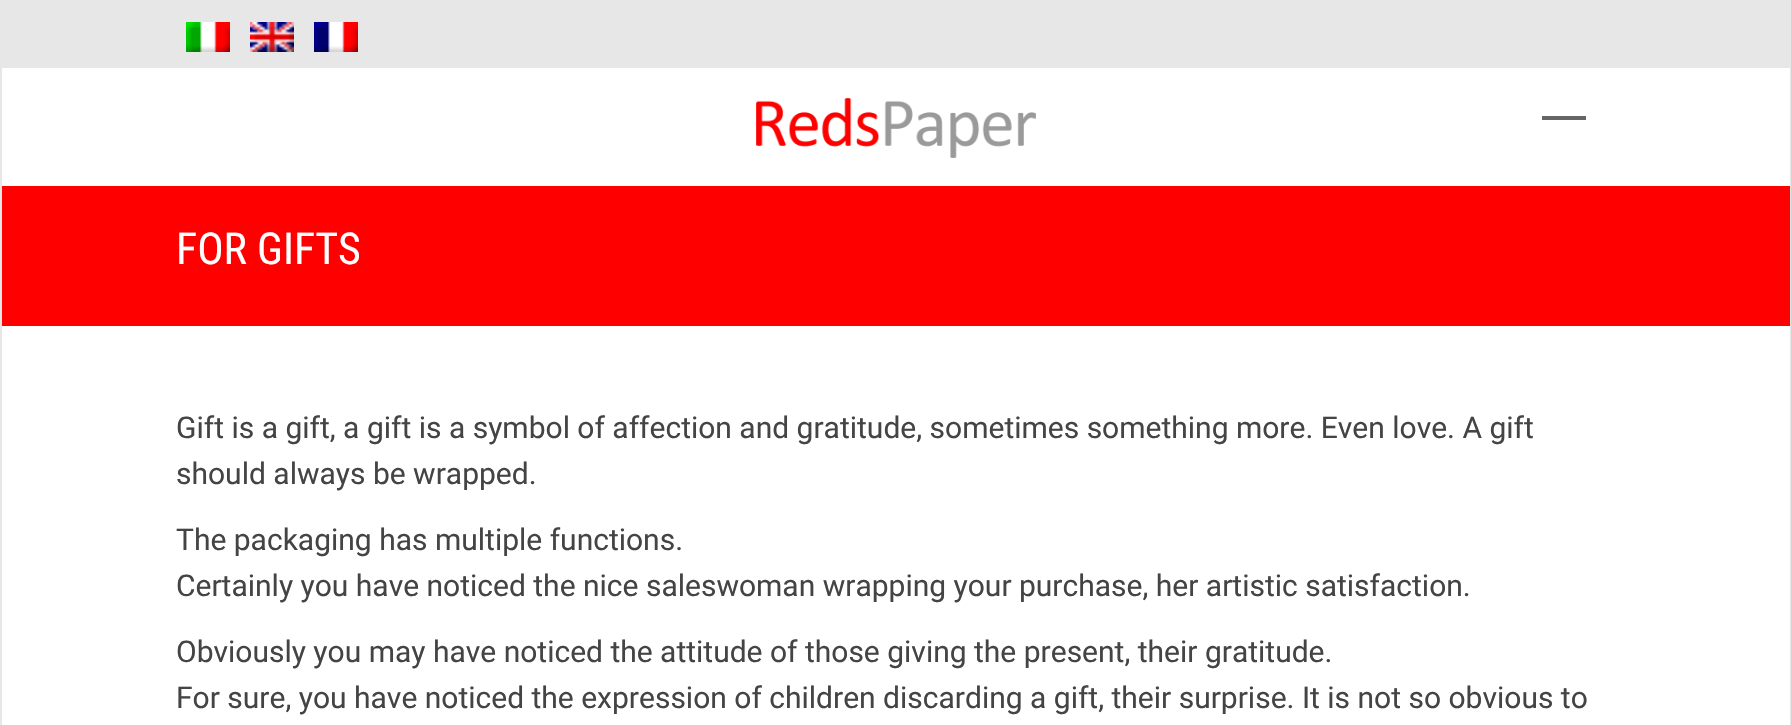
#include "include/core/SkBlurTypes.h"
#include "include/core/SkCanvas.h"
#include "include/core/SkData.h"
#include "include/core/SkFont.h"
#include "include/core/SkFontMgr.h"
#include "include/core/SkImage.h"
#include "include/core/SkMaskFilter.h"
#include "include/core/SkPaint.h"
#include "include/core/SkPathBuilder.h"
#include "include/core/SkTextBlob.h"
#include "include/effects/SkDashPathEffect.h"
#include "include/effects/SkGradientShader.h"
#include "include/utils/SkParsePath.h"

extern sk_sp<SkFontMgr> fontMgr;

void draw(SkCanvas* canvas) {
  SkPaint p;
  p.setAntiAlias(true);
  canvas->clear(SK_ColorWHITE);
  p.setStyle(SkPaint::kStroke_Style);
  p.setStrokeWidth(2);
  p.setColor(SkColorSetRGB(231, 231, 231));
  canvas->drawRect(SkRect::MakeLTRB(1, 1, 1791, 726), p);
  p.setStyle(SkPaint::kFill_Style);
  canvas->drawRect(SkRect::MakeLTRB(2, 2, 1790, 68), p);
  canvas->drawImageRect(SkImages::DeferredFromEncodedData(SkData::MakeFromFileName("images/1.png")), SkRect::MakeLTRB(186, 22, 230, 52), SkSamplingOptions());
  canvas->drawImageRect(SkImages::DeferredFromEncodedData(SkData::MakeFromFileName("images/2.png")), SkRect::MakeLTRB(250, 22, 294, 52), SkSamplingOptions());
  canvas->drawImageRect(SkImages::DeferredFromEncodedData(SkData::MakeFromFileName("images/3.png")), SkRect::MakeLTRB(314, 22, 358, 52), SkSamplingOptions());
  canvas->drawImageRect(SkImages::DeferredFromEncodedData(SkData::MakeFromFileName("images/4.png")), SkRect::MakeLTRB(756, 98, 1036, 158), SkSamplingOptions());
  p.setColor(SkColorSetRGB(102, 102, 102));
  canvas->drawRect(SkRect::MakeLTRB(1542, 116, 1586, 120), p);
  p.setColor(SkColorSetRGB(255, 0, 0));
  canvas->drawRect(SkRect::MakeLTRB(2, 186, 1790, 326), p);
  SkFont font1(fontMgr->matchFamilyStyle("Roboto Condensed", SkFontStyle::Normal()), 44);
  font1.setSubpixel(true);
  p.setColor(SK_ColorWHITE);
  canvas->drawString("FOR GIFTS", 176, 264, font1, p);
  SkFont font2(fontMgr->matchFamilyStyle("Roboto", SkFontStyle::Normal()), 30);
  font2.setSubpixel(true);
  p.setColor(SkColorSetRGB(68, 68, 68));
  canvas->drawString("Gift is a gift, a gift is a symbol of affection and gratitude, sometimes something more. Even love. A gift", 176, 438, font2, p);
  canvas->drawString("should always be wrapped.", 176, 484, font2, p);
  canvas->drawString("The packaging has multiple functions.", 176, 550, font2, p);
  canvas->drawString("Certainly you have noticed the nice saleswoman wrapping your purchase, her artistic satisfaction.", 176, 596, font2, p);
  canvas->drawString("Obviously you may have noticed the attitude of those giving the present, their gratitude.", 176, 662, font2, p);
  canvas->drawString("For sure, you have noticed the expression of children discarding a gift, their surprise. It is not so obvious to", 176, 708, font2, p);
}
